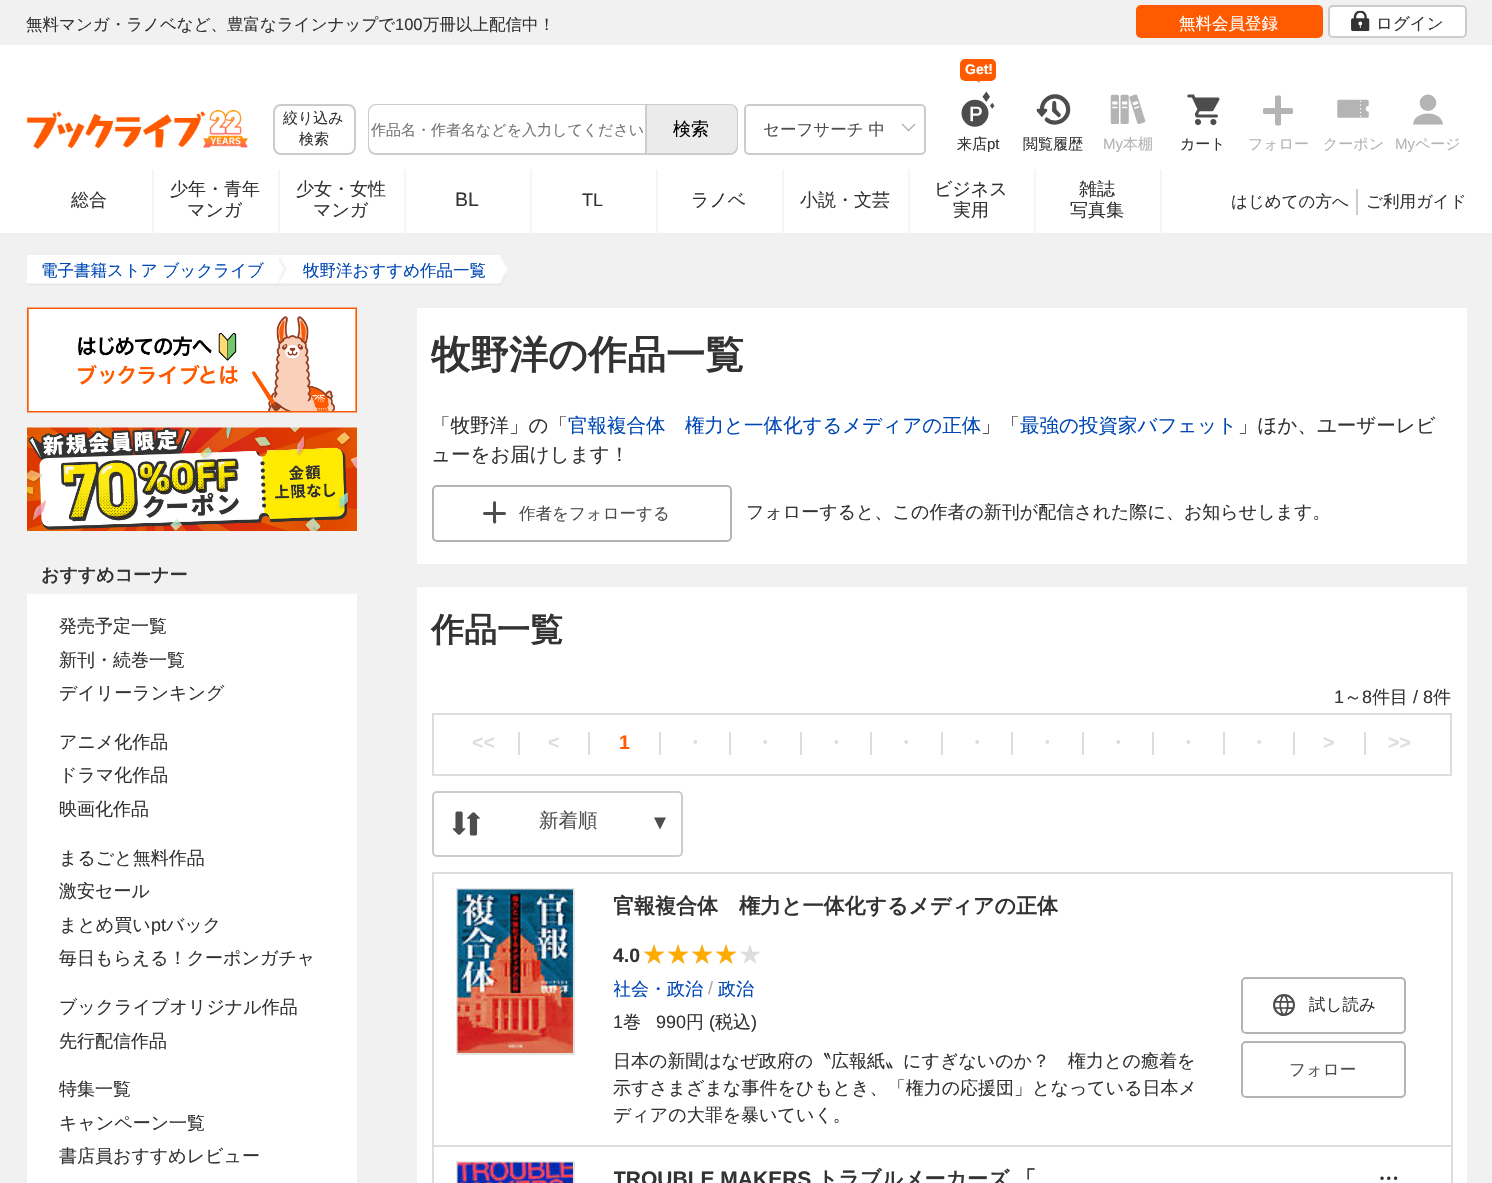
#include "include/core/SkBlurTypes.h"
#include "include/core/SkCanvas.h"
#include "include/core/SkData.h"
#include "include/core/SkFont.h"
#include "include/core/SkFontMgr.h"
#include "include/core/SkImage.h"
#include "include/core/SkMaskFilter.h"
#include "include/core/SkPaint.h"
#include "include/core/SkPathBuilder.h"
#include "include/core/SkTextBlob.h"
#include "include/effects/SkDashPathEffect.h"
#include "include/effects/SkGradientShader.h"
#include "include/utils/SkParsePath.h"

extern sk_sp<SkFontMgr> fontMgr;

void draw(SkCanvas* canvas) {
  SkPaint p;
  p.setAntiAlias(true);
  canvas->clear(SkColorSetRGB(241, 241, 241));
  p.setColor(SK_ColorWHITE);
  canvas->drawRect(SkRect::MakeLTRB(0, 45, 1492, 233), p);
  p.setColor(SkColorSetRGB(255, 90, 0));
  canvas->drawRoundRect(SkRect::MakeLTRB(1137, 6, 1322, 37), 4, 4, p);
  p.setStyle(SkPaint::kStroke_Style);
  p.setStrokeWidth(2);
  canvas->drawRoundRect(SkRect::MakeLTRB(1137, 6, 1322, 37), 4, 4, p);
  p.setStyle(SkPaint::kFill_Style);
  p.setColor(SK_ColorWHITE);
  canvas->drawRoundRect(SkRect::MakeLTRB(1329, 6, 1466, 37), 4, 4, p);
  p.setStyle(SkPaint::kStroke_Style);
  p.setColor(SkColorSetRGB(204, 204, 204));
  canvas->drawRoundRect(SkRect::MakeLTRB(1329, 6, 1466, 37), 4, 4, p);
  canvas->drawImageRect(SkImages::DeferredFromEncodedData(SkData::MakeFromFileName("images/1.png")), SkRect::MakeLTRB(1351, 10, 1370, 32), SkSamplingOptions());
  canvas->drawImageRect(SkImages::DeferredFromEncodedData(SkData::MakeFromFileName("images/2.png")), SkRect::MakeLTRB(27, 110, 248, 149), SkSamplingOptions());
  canvas->drawRoundRect(SkRect::MakeLTRB(274, 105, 355, 154), 7, 7, p);
  canvas->drawRoundRect(SkRect::MakeLTRB(369, 105, 737, 154), 7, 7, p);
  p.setStyle(SkPaint::kFill_Style);
  p.setColor(SK_ColorWHITE);
  canvas->drawPath(SkPathBuilder().moveTo(377, 105).lineTo(645, 105).lineTo(645, 153).lineTo(377, 153).cubicTo(372.5f, 153, 369, 149.5f, 369, 145).lineTo(369, 113).cubicTo(369, 108.5f, 372.5f, 105, 377, 105).close().detach(), p);
  p.setColor(SkColorSetRGB(235, 235, 235));
  canvas->drawPath(SkPathBuilder().moveTo(645, 105).lineTo(729, 105).cubicTo(733.5f, 105, 737, 108.5f, 737, 113).lineTo(737, 145).cubicTo(737, 149.5f, 733.5f, 153, 729, 153).lineTo(645, 153).close().detach(), p);
  p.setColor(SkColorSetRGB(204, 204, 204));
  canvas->drawRect(SkRect::MakeLTRB(645, 105, 647, 153), p);
  p.setStyle(SkPaint::kStroke_Style);
  canvas->drawRoundRect(SkRect::MakeLTRB(745, 105, 925, 154), 4, 4, p);
  p.setStyle(SkPaint::kFill_Style);
  p.setColor(SkColorSetRGB(180, 180, 180));
  canvas->drawPath(SkPathBuilder().moveTo(915.5f, 124.5f).lineTo(908.5f, 131.5f).lineTo(907.5f, 130.5f).lineTo(914.5f, 123.5f).close().detach(), p);
  canvas->drawPath(SkPathBuilder().moveTo(909.5f, 130.5f).lineTo(908.5f, 131.5f).lineTo(901.5f, 124.5f).lineTo(902.5f, 123.5f).close().detach(), p);
  p.setColor(SkColorSetRGB(255, 90, 0));
  canvas->drawRoundRect(SkRect::MakeLTRB(960, 59, 996, 81), 5, 5, p);
  canvas->drawImageRect(SkImages::DeferredFromEncodedData(SkData::MakeFromFileName("images/3.png")), SkRect::MakeLTRB(976, 81, 982, 83), SkSamplingOptions());
  canvas->drawImageRect(SkImages::DeferredFromEncodedData(SkData::MakeFromFileName("images/4.png")), SkRect::MakeLTRB(961, 91, 995, 127), SkSamplingOptions());
  canvas->drawImageRect(SkImages::DeferredFromEncodedData(SkData::MakeFromFileName("images/5.png")), SkRect::MakeLTRB(1036, 94, 1071, 125), SkSamplingOptions());
  canvas->drawImageRect(SkImages::DeferredFromEncodedData(SkData::MakeFromFileName("images/6.png")), SkRect::MakeLTRB(1110, 94, 1146, 125), SkSamplingOptions());
  canvas->drawImageRect(SkImages::DeferredFromEncodedData(SkData::MakeFromFileName("images/7.png")), SkRect::MakeLTRB(1187, 94, 1220, 126), SkSamplingOptions());
  p.setColor(SkColorSetRGB(180, 180, 180));
  canvas->drawRoundRect(SkRect::MakeLTRB(1263, 108, 1293, 114), 1.5f, 1.5f, p);
  canvas->drawPath(SkPathBuilder().moveTo(1281, 97).lineTo(1281, 124).cubicTo(1281, 124.5f, 1280.5f, 125.5f, 1279.5f, 125.5f).lineTo(1276.5f, 125.5f).cubicTo(1276, 125.5f, 1275, 124.5f, 1275, 124).lineTo(1275, 97).cubicTo(1275, 96, 1276, 95.5f, 1276.5f, 95.5f).lineTo(1279.5f, 95.5f).cubicTo(1280.5f, 95.5f, 1281, 96, 1281, 97).close().detach(), p);
  canvas->drawImageRect(SkImages::DeferredFromEncodedData(SkData::MakeFromFileName("images/8.png")), SkRect::MakeLTRB(1337, 99, 1369, 118), SkSamplingOptions());
  canvas->drawImageRect(SkImages::DeferredFromEncodedData(SkData::MakeFromFileName("images/9.png")), SkRect::MakeLTRB(1413, 94, 1443, 125), SkSamplingOptions());
  p.setColor(SkColorSetRGB(246, 246, 246));
  canvas->drawRect(SkRect::MakeLTRB(152, 170, 154, 233), p);
  canvas->drawRect(SkRect::MakeLTRB(278, 170, 280, 233), p);
  canvas->drawRect(SkRect::MakeLTRB(404, 170, 406, 233), p);
  canvas->drawRect(SkRect::MakeLTRB(530, 170, 532, 233), p);
  canvas->drawRect(SkRect::MakeLTRB(656, 170, 658, 233), p);
  canvas->drawRect(SkRect::MakeLTRB(782, 170, 784, 233), p);
  canvas->drawRect(SkRect::MakeLTRB(908, 170, 910, 233), p);
  canvas->drawRect(SkRect::MakeLTRB(1034, 170, 1036, 233), p);
  canvas->drawRect(SkRect::MakeLTRB(1160, 170, 1162, 233), p);
  p.setColor(SkColorSetRGB(204, 204, 204));
  canvas->drawRect(SkRect::MakeLTRB(1356, 189, 1358, 215), p);
  canvas->drawImageRect(SkImages::DeferredFromEncodedData(SkData::MakeFromFileName("images/10.png")), SkRect::MakeLTRB(276, 255, 288, 286), SkSamplingOptions());
  canvas->drawImageRect(SkImages::DeferredFromEncodedData(SkData::MakeFromFileName("images/11.png")), SkRect::MakeLTRB(27, 255, 279, 286), SkSamplingOptions());
  canvas->drawImageRect(SkImages::DeferredFromEncodedData(SkData::MakeFromFileName("images/12.png")), SkRect::MakeLTRB(498, 256, 507, 285), SkSamplingOptions());
  canvas->drawImageRect(SkImages::DeferredFromEncodedData(SkData::MakeFromFileName("images/13.png")), SkRect::MakeLTRB(288, 255, 501, 286), SkSamplingOptions());
  canvas->drawImageRect(SkImages::DeferredFromEncodedData(SkData::MakeFromFileName("images/14.png")), SkRect::MakeLTRB(27, 307, 357, 413), SkSamplingOptions());
  canvas->drawImageRect(SkImages::DeferredFromEncodedData(SkData::MakeFromFileName("images/15.png")), SkRect::MakeLTRB(27, 427, 357, 531), SkSamplingOptions());
  p.setColor(SK_ColorWHITE);
  canvas->drawRect(SkRect::MakeLTRB(27, 594, 357, 1183), p);
  canvas->drawRect(SkRect::MakeLTRB(417, 308, 1467, 564), p);
  p.setStyle(SkPaint::kStroke_Style);
  p.setColor(SkColorSetRGB(180, 180, 180));
  canvas->drawRoundRect(SkRect::MakeLTRB(433, 486, 731, 541), 4, 4, p);
  p.setStyle(SkPaint::kFill_Style);
  p.setColor(SkColorSetRGB(77, 77, 77));
  canvas->drawRoundRect(SkRect::MakeLTRB(483, 512, 506, 515), 1.5f, 1.5f, p);
  canvas->drawPath(SkPathBuilder().moveTo(496, 502.5f).lineTo(496, 519).cubicTo(496, 520, 497, 523, 495, 523.5f).cubicTo(492.5f, 524, 493, 520, 493, 519).lineTo(493, 502.5f).cubicTo(493.5f, 500.5f, 496, 501, 496, 502.5f).close().detach(), p);
  p.setColor(SK_ColorWHITE);
  canvas->drawRect(SkRect::MakeLTRB(417, 587, 1467, 1183), p);
  p.setStyle(SkPaint::kStroke_Style);
  p.setColor(SkColorSetRGB(221, 221, 221));
  canvas->drawRect(SkRect::MakeLTRB(433, 714, 1451, 775), p);
  p.setStyle(SkPaint::kFill_Style);
  canvas->drawRect(SkRect::MakeLTRB(518, 732, 520, 755), p);
  canvas->drawRect(SkRect::MakeLTRB(588, 732, 590, 755), p);
  canvas->drawRect(SkRect::MakeLTRB(659, 732, 661, 755), p);
  canvas->drawRect(SkRect::MakeLTRB(729, 732, 731, 755), p);
  canvas->drawRect(SkRect::MakeLTRB(800, 732, 802, 755), p);
  canvas->drawRect(SkRect::MakeLTRB(870, 732, 872, 755), p);
  canvas->drawRect(SkRect::MakeLTRB(941, 732, 943, 755), p);
  canvas->drawRect(SkRect::MakeLTRB(1011, 732, 1013, 755), p);
  canvas->drawRect(SkRect::MakeLTRB(1082, 732, 1084, 755), p);
  canvas->drawRect(SkRect::MakeLTRB(1152, 732, 1154, 755), p);
  canvas->drawRect(SkRect::MakeLTRB(1223, 732, 1225, 755), p);
  canvas->drawRect(SkRect::MakeLTRB(1293, 732, 1295, 755), p);
  canvas->drawRect(SkRect::MakeLTRB(1364, 732, 1366, 755), p);
  p.setStyle(SkPaint::kStroke_Style);
  p.setColor(SkColorSetRGB(204, 204, 204));
  canvas->drawRoundRect(SkRect::MakeLTRB(433, 792, 682, 856), 4, 4, p);
  canvas->drawImageRect(SkImages::DeferredFromEncodedData(SkData::MakeFromFileName("images/16.png")), SkRect::MakeLTRB(452, 811, 480, 836), SkSamplingOptions());
  p.setStyle(SkPaint::kFill_Style);
  p.setColor(SkColorSetRGB(77, 77, 77));
  canvas->drawPath(SkPathBuilder().moveTo(654, 817.5f).lineTo(666, 817.5f).lineTo(660, 829.5f).close().detach(), p);
  p.setColor(SkColorSetRGB(221, 221, 221));
  canvas->drawRect(SkRect::MakeLTRB(432, 872, 1452, 874), p);
  canvas->drawRect(SkRect::MakeLTRB(1451, 872, 1453, 1183), p);
  canvas->drawRect(SkRect::MakeLTRB(432, 872, 434, 1183), p);
  canvas->drawRect(SkRect::MakeLTRB(434, 1145, 1451, 1147), p);
  p.setStyle(SkPaint::kStroke_Style);
  p.setColor(SkColorSetRGB(229, 229, 229));
  canvas->drawRect(SkRect::MakeLTRB(457, 889, 574, 1054), p);
  canvas->drawImageRect(SkImages::DeferredFromEncodedData(SkData::MakeFromFileName("images/17.png")), SkRect::MakeLTRB(457, 889, 573, 1053), SkSamplingOptions());
  canvas->drawImageRect(SkImages::DeferredFromEncodedData(SkData::MakeFromFileName("images/18.png")), SkRect::MakeLTRB(644, 944, 664, 964), SkSamplingOptions());
  canvas->drawImageRect(SkImages::DeferredFromEncodedData(SkData::MakeFromFileName("images/18.png")), SkRect::MakeLTRB(668, 944, 688, 964), SkSamplingOptions());
  canvas->drawImageRect(SkImages::DeferredFromEncodedData(SkData::MakeFromFileName("images/18.png")), SkRect::MakeLTRB(692, 944, 712, 964), SkSamplingOptions());
  canvas->drawImageRect(SkImages::DeferredFromEncodedData(SkData::MakeFromFileName("images/18.png")), SkRect::MakeLTRB(716, 944, 736, 964), SkSamplingOptions());
  canvas->drawImageRect(SkImages::DeferredFromEncodedData(SkData::MakeFromFileName("images/18.png")), SkRect::MakeLTRB(740, 944, 760, 964), SkSamplingOptions());
  canvas->drawImageRect(SkImages::DeferredFromEncodedData(SkData::MakeFromFileName("images/19.png")), SkRect::MakeLTRB(644, 944, 665, 964), SkSamplingOptions());
  canvas->drawImageRect(SkImages::DeferredFromEncodedData(SkData::MakeFromFileName("images/19.png")), SkRect::MakeLTRB(668, 944, 689, 964), SkSamplingOptions());
  canvas->drawImageRect(SkImages::DeferredFromEncodedData(SkData::MakeFromFileName("images/19.png")), SkRect::MakeLTRB(692, 944, 713, 964), SkSamplingOptions());
  canvas->drawImageRect(SkImages::DeferredFromEncodedData(SkData::MakeFromFileName("images/19.png")), SkRect::MakeLTRB(716, 944, 737, 964), SkSamplingOptions());
  p.setColor(SkColorSetRGB(180, 180, 180));
  canvas->drawRoundRect(SkRect::MakeLTRB(1242, 978, 1405, 1033), 4, 4, p);
  canvas->drawImageRect(SkImages::DeferredFromEncodedData(SkData::MakeFromFileName("images/20.png")), SkRect::MakeLTRB(1273, 994, 1295, 1016), SkSamplingOptions());
  canvas->drawRoundRect(SkRect::MakeLTRB(1242, 1042, 1405, 1097), 4, 4, p);
  p.setColor(SkColorSetRGB(229, 229, 229));
  canvas->drawRect(SkRect::MakeLTRB(457, 1162, 574, 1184), p);
  canvas->drawImageRect(SkImages::DeferredFromEncodedData(SkData::MakeFromFileName("images/21.png")), SkRect::MakeLTRB(457, 1162, 573, 1183), SkSamplingOptions());
  SkFont font1(fontMgr->matchFamilyStyle("WenQuanYi Zen Hei", SkFontStyle(500, SkFontStyle::kNormal_Width, SkFontStyle::kUpright_Slant)), 16.5f);
  font1.setSubpixel(true);
  p.setStyle(SkPaint::kFill_Style);
  p.setColor(SkColorSetRGB(51, 51, 51));
  canvas->drawString("無料マンガ・ラノベなど、豊富なラインナップで", 26, 30, font1, p);
  SkFont font2(fontMgr->matchFamilyStyle("Liberation Sans", SkFontStyle::Normal()), 16.5f);
  font2.setSubpixel(true);
  canvas->drawString("100", 395, 30, font2, p);
  canvas->drawString("万冊以上配信中！", 423, 30, font1, p);
  p.setColor(SK_ColorWHITE);
  canvas->drawString("無料会員登録", 1179, 29, font1, p);
  p.setColor(SkColorSetRGB(51, 51, 51));
  canvas->drawString("ログイン", 1376, 29, font1, p);
  SkFont font3(fontMgr->matchFamilyStyle("WenQuanYi Zen Hei", SkFontStyle(500, SkFontStyle::kNormal_Width, SkFontStyle::kUpright_Slant)), 15);
  font3.setSubpixel(true);
  canvas->drawString("絞り込み", 283, 123, font3, p);
  canvas->drawString("検索", 299, 144, font3, p);
  p.setColor(SkColorSetRGB(117, 117, 117));
  canvas->drawString("作品名・作者名などを入力してください", 371, 135, font3, p);
  SkFont font4(fontMgr->matchFamilyStyle("WenQuanYi Zen Hei", SkFontStyle(500, SkFontStyle::kNormal_Width, SkFontStyle::kUpright_Slant)), 18);
  font4.setSubpixel(true);
  p.setColor(SK_ColorBLACK);
  canvas->drawString("検索", 673, 135, font4, p);
  p.setColor(SkColorSetRGB(77, 77, 77));
  canvas->drawString("セーフサーチ 中", 763, 135, font1, p);
  SkFont font5(fontMgr->matchFamilyStyle("Liberation Sans", SkFontStyle::Bold()), 14);
  font5.setSubpixel(true);
  p.setColor(SK_ColorWHITE);
  canvas->drawString("Get!", 965, 74, font5, p);
  p.setColor(SkColorSetRGB(51, 51, 51));
  canvas->drawString("来店", 957, 149, font3, p);
  SkFont font6(fontMgr->matchFamilyStyle("Liberation Sans", SkFontStyle::Normal()), 15);
  font6.setSubpixel(true);
  canvas->drawString("pt", 987, 149, font6, p);
  canvas->drawString("閲覧履歴", 1023, 149, font3, p);
  p.setColor(SkColorSetRGB(180, 180, 180));
  canvas->drawString("My", 1103, 149, font6, p);
  canvas->drawString("本棚", 1123, 149, font3, p);
  p.setColor(SkColorSetRGB(51, 51, 51));
  canvas->drawString("カート", 1180, 149, font3, p);
  p.setColor(SkColorSetRGB(180, 180, 180));
  canvas->drawString("フォロー", 1248, 149, font3, p);
  canvas->drawString("クーポン", 1323, 149, font3, p);
  canvas->drawString("My", 1395, 149, font6, p);
  canvas->drawString("ページ", 1415, 149, font3, p);
  p.setColor(SkColorSetRGB(51, 51, 51));
  canvas->drawString("総合", 71, 206, font4, p);
  canvas->drawString("少年・青年", 170, 195, font4, p);
  canvas->drawString("マンガ", 187, 216, font4, p);
  canvas->drawString("少女・女性", 296, 195, font4, p);
  canvas->drawString("マンガ", 313, 216, font4, p);
  SkFont font7(fontMgr->matchFamilyStyle("Liberation Sans", SkFontStyle::Normal()), 19.5f);
  font7.setSubpixel(true);
  canvas->drawString("BL", 455, 206, font7, p);
  SkFont font8(fontMgr->matchFamilyStyle("Liberation Sans", SkFontStyle::Normal()), 18);
  font8.setSubpixel(true);
  canvas->drawString("TL", 582, 206, font8, p);
  canvas->drawString("ラノベ", 691, 206, font4, p);
  canvas->drawString("小説・文芸", 800, 206, font4, p);
  canvas->drawString("ビジネス", 934, 195, font4, p);
  canvas->drawString("実用", 953, 216, font4, p);
  canvas->drawString("雑誌", 1079, 195, font4, p);
  canvas->drawString("写真集", 1070, 216, font4, p);
  canvas->drawString("はじめての方へ", 1231, 207, font1, p);
  canvas->drawString("ご利用ガイド", 1366, 207, font1, p);
  p.setColor(SkColorSetRGB(0, 72, 180));
  canvas->drawString("電子書籍ストア ブックライブ", 41, 276, font1, p);
  canvas->drawString("牧野洋おすすめ作品一覧", 303, 276, font1, p);
  SkFont font9(fontMgr->matchFamilyStyle("WenQuanYi Zen Hei", SkFontStyle::Bold()), 18);
  font9.setSubpixel(true);
  p.setColor(SkColorSetRGB(51, 51, 51));
  canvas->drawString("おすすめコーナー", 41, 581, font9, p);
  canvas->drawString("発売予定一覧", 59, 632, font4, p);
  canvas->drawString("新刊・続巻一覧", 59, 666, font4, p);
  canvas->drawString("デイリーランキング", 59, 699, font4, p);
  canvas->drawString("アニメ化作品", 59, 748, font4, p);
  canvas->drawString("ドラマ化作品", 59, 781, font4, p);
  canvas->drawString("映画化作品", 59, 815, font4, p);
  canvas->drawString("まるごと無料作品", 59, 864, font4, p);
  canvas->drawString("激安セール", 59, 897, font4, p);
  canvas->drawString("まとめ買い", 59, 931, font4, p);
  canvas->drawString("pt", 151, 931, font8, p);
  canvas->drawString("バック", 166, 931, font4, p);
  canvas->drawString("毎日もらえる！クーポンガチャ", 59, 964, font4, p);
  canvas->drawString("ブックライブオリジナル作品", 59, 1013, font4, p);
  canvas->drawString("先行配信作品", 59, 1047, font4, p);
  canvas->drawString("特集一覧", 59, 1095, font4, p);
  canvas->drawString("キャンペーン一覧", 59, 1129, font4, p);
  canvas->drawString("書店員おすすめレビュー", 59, 1162, font4, p);
  SkFont font10(fontMgr->matchFamilyStyle("WenQuanYi Zen Hei", SkFontStyle::Bold()), 39);
  font10.setSubpixel(true);
  canvas->drawString("牧野洋の作品一覧", 431, 368, font10, p);
  SkFont font11(fontMgr->matchFamilyStyle("WenQuanYi Zen Hei", SkFontStyle(500, SkFontStyle::kNormal_Width, SkFontStyle::kUpright_Slant)), 19.5f);
  font11.setSubpixel(true);
  canvas->drawString("「牧野洋」の「", 431, 432, font11, p);
  p.setColor(SkColorSetRGB(0, 72, 180));
  canvas->drawString("官報複合体　権力と一体化するメディアの正体", 568, 432, font11, p);
  p.setColor(SkColorSetRGB(51, 51, 51));
  canvas->drawString("」「", 981, 432, font11, p);
  p.setColor(SkColorSetRGB(0, 72, 180));
  canvas->drawString("最強の投資家バフェット", 1020, 432, font11, p);
  p.setColor(SkColorSetRGB(51, 51, 51));
  canvas->drawString("」ほか、ユーザーレビ", 1238, 432, font11, p);
  canvas->drawString("ューをお届けします！", 431, 461, font11, p);
  p.setColor(SkColorSetRGB(77, 77, 77));
  canvas->drawString("作者をフォローする", 519, 519, font1, p);
  p.setColor(SkColorSetRGB(51, 51, 51));
  canvas->drawString("フォローすると、この作者の新刊が配信された際に、お知らせします。", 746, 518, font4, p);
  SkFont font12(fontMgr->matchFamilyStyle("WenQuanYi Zen Hei", SkFontStyle::Bold()), 33);
  font12.setSubpixel(true);
  canvas->drawString("作品一覧", 431, 641, font12, p);
  canvas->drawString("1", 1334, 703, font8, p);
  canvas->drawString("～", 1344, 703, font4, p);
  canvas->drawString("8", 1362, 703, font8, p);
  canvas->drawString("件目", 1372, 703, font4, p);
  canvas->drawString("/ 8", 1413, 703, font8, p);
  canvas->drawString("件", 1433, 703, font4, p);
  SkFont font13(fontMgr->matchFamilyStyle("Liberation Sans", SkFontStyle::Bold()), 19.5f);
  font13.setSubpixel(true);
  p.setColor(SkColorSetRGB(221, 221, 221));
  canvas->drawString("<<", 472, 749, font13, p);
  canvas->drawString("<", 548, 749, font13, p);
  p.setColor(SkColorSetRGB(255, 90, 0));
  canvas->drawString("1", 619, 749, font13, p);
  SkFont font14(fontMgr->matchFamilyStyle("WenQuanYi Zen Hei", SkFontStyle::Bold()), 19.5f);
  font14.setSubpixel(true);
  p.setColor(SkColorSetRGB(221, 221, 221));
  canvas->drawString("・", 685, 749, font14, p);
  canvas->drawString("・", 755, 749, font14, p);
  canvas->drawString("・", 826, 749, font14, p);
  canvas->drawString("・", 896, 749, font14, p);
  canvas->drawString("・", 967, 749, font14, p);
  canvas->drawString("・", 1037, 749, font14, p);
  canvas->drawString("・", 1108, 749, font14, p);
  canvas->drawString("・", 1178, 749, font14, p);
  canvas->drawString("・", 1249, 749, font14, p);
  canvas->drawString(">", 1323, 749, font13, p);
  canvas->drawString(">>", 1388, 749, font13, p);
  p.setColor(SkColorSetRGB(77, 77, 77));
  canvas->drawString("新着順", 539, 827, font11, p);
  canvas->save();
  canvas->clipRect(SkRect::MakeLTRB(614, 888, 1406, 926));
  SkFont font15(fontMgr->matchFamilyStyle("WenQuanYi Zen Hei", SkFontStyle::Bold()), 21);
  font15.setSubpixel(true);
  p.setColor(SkColorSetRGB(51, 51, 51));
  canvas->drawString("官報複合体　権力と一体化するメディアの正体", 613, 913, font15, p);
  canvas->restore();
  canvas->drawString("4.0", 613, 962, font13, p);
  canvas->save();
  canvas->clipRect(SkRect::MakeLTRB(614, 977, 1206, 1001));
  p.setColor(SkColorSetRGB(0, 72, 180));
  canvas->drawString("社会・政治", 613, 995, font4, p);
  canvas->restore();
  p.setColor(SkColorSetRGB(170, 170, 170));
  canvas->drawString("/", 708, 994, font8, p);
  p.setColor(SkColorSetRGB(0, 72, 180));
  canvas->drawString("政治", 718, 995, font4, p);
  p.setColor(SkColorSetRGB(51, 51, 51));
  canvas->drawString("1", 613, 1028, font8, p);
  canvas->drawString("巻", 623, 1028, font4, p);
  canvas->drawString("990", 656, 1028, font8, p);
  canvas->drawString("円", 686, 1028, font4, p);
  canvas->drawString("(", 709, 1028, font8, p);
  canvas->drawString("税込", 715, 1028, font4, p);
  canvas->drawString(")", 751, 1028, font8, p);
  canvas->drawString("日本の新聞はなぜ政府の〝広報紙〟にすぎないのか？　権力との癒着を", 613, 1067, font4, p);
  canvas->drawString("示すさまざまな事件をひもとき、「権力の応援団」となっている日本メ", 613, 1094, font4, p);
  canvas->drawString("ディアの大罪を暴いていく。", 613, 1121, font4, p);
  canvas->drawString("試し読み", 1309, 1010, font1, p);
  p.setColor(SkColorSetRGB(77, 77, 77));
  canvas->drawString("フォロー", 1289, 1075, font1, p);
  canvas->save();
  canvas->clipRect(SkRect::MakeLTRB(614, 1161, 1406, 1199));
  SkFont font16(fontMgr->matchFamilyStyle("Liberation Sans", SkFontStyle::Bold()), 21);
  font16.setSubpixel(true);
  p.setColor(SkColorSetRGB(51, 51, 51));
  canvas->drawString("TROUBLE MAKERS", 613, 1186, font16, p);
  canvas->restore();
  canvas->drawString("トラブルメーカーズ", 817, 1186, font15, p);
  canvas->drawString("「", 1015, 1186, font15, p);
  canvas->drawString("…", 1378, 1186, font15, p);
}
